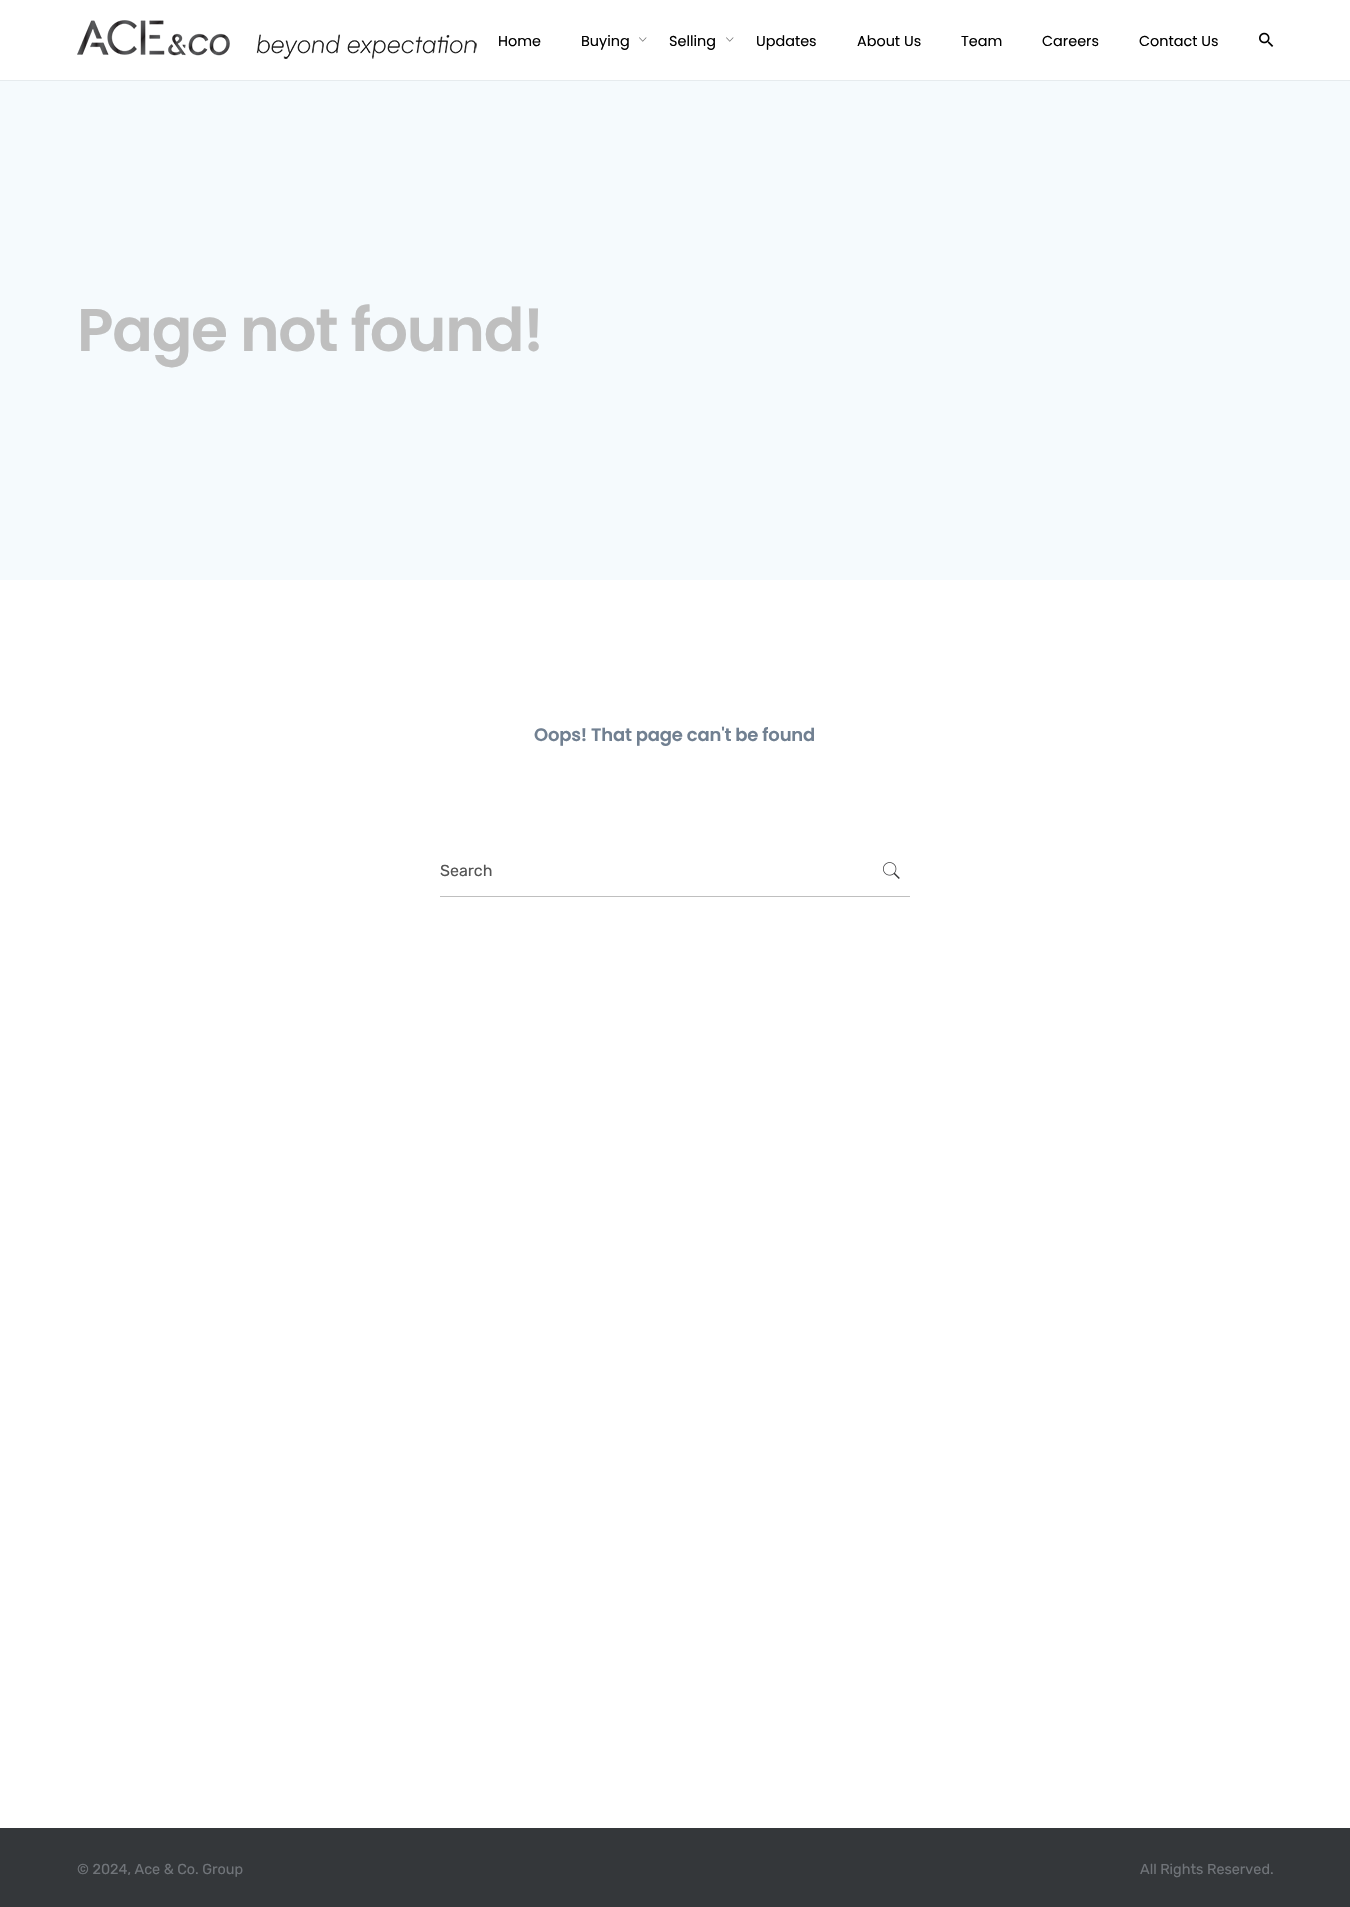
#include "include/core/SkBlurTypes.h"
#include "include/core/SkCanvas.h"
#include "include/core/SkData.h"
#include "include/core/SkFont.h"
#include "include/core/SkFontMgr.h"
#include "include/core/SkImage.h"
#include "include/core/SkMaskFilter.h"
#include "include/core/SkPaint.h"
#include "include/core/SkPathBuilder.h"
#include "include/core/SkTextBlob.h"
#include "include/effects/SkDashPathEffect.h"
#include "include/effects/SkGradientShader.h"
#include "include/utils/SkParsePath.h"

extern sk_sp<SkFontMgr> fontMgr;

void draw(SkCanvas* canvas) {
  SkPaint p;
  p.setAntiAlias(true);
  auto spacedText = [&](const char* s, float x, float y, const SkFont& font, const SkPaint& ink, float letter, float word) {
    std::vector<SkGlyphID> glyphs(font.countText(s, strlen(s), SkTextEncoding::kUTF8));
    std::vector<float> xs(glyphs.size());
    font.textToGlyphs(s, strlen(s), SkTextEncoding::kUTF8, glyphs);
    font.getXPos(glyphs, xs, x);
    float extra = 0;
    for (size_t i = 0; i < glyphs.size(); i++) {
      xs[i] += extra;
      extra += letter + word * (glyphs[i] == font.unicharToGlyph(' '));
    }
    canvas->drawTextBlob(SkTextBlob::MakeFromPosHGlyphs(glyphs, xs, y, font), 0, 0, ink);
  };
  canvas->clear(SK_ColorWHITE);
  p.setColor(SkColorSetRGB(230, 235, 238));
  canvas->drawRect(SkRect::MakeLTRB(0, 80, 1350, 81), p);
  canvas->drawImageRect(SkImages::DeferredFromEncodedData(SkData::MakeFromFileName("images/1.png")), SkRect::MakeLTRB(77, 20, 477, 59), SkSamplingOptions());
  canvas->drawImageRect(SkImages::DeferredFromEncodedData(SkData::MakeFromFileName("images/2.png")), SkRect::MakeLTRB(639, 37, 647, 42), SkSamplingOptions());
  canvas->drawImageRect(SkImages::DeferredFromEncodedData(SkData::MakeFromFileName("images/2.png")), SkRect::MakeLTRB(726, 37, 734, 42), SkSamplingOptions());
  canvas->drawImageRect(SkImages::DeferredFromEncodedData(SkData::MakeFromFileName("images/3.png")), SkRect::MakeLTRB(1259, 32, 1274, 47), SkSamplingOptions());
  p.setColor(SkColorSetRGB(245, 250, 253));
  canvas->drawRect(SkRect::MakeLTRB(0, 81, 1350, 580), p);
  p.setColor(SkColorSetRGB(191, 191, 191));
  canvas->drawRect(SkRect::MakeLTRB(440, 896, 910, 897), p);
  canvas->drawImageRect(SkImages::DeferredFromEncodedData(SkData::MakeFromFileName("images/4.png")), SkRect::MakeLTRB(883, 862, 900, 879), SkSamplingOptions());
  p.setColor(SkColorSetRGB(52, 55, 58));
  canvas->drawRect(SkRect::MakeLTRB(0, 1828, 1350, 1907), p);
  SkFont font1(fontMgr->matchFamilyStyle("Poppins", SkFontStyle::Normal()), 14.4f);
  font1.setSubpixel(true);
  p.setColor(SK_ColorBLACK);
  canvas->drawString("Home", 498, 46, font1, p);
  canvas->drawString("Buying", 581, 46, font1, p);
  canvas->drawString("Selling", 669, 46, font1, p);
  canvas->drawString("Updates", 756, 46, font1, p);
  canvas->drawString("About Us", 857, 46, font1, p);
  canvas->drawString("Team", 961, 46, font1, p);
  canvas->drawString("Careers", 1042, 46, font1, p);
  canvas->drawString("Contact Us", 1139, 46, font1, p);
  SkFont font2(fontMgr->matchFamilyStyle("Poppins", SkFontStyle(600, SkFontStyle::kNormal_Width, SkFontStyle::kUpright_Slant)), 60);
  font2.setSubpixel(true);
  p.setColor(SkColorSetRGB(191, 191, 191));
  spacedText("Page not found!", 77, 351, font2, p, -1.25f, 0);
  SkFont font3(fontMgr->matchFamilyStyle("Poppins", SkFontStyle(600, SkFontStyle::kNormal_Width, SkFontStyle::kUpright_Slant)), 18);
  font3.setSubpixel(true);
  p.setColor(SkColorSetRGB(113, 128, 145));
  spacedText("Oops! That page can't be found", 534, 741, font3, p, -0.2f, 0);
  SkFont font4(fontMgr->matchFamilyStyle("Rubik", SkFontStyle::Normal()), 16);
  font4.setSubpixel(true);
  p.setColor(SkColorSetRGB(85, 85, 85));
  canvas->drawString("Search", 440, 876, font4, p);
  SkFont font5(fontMgr->matchFamilyStyle("Rubik", SkFontStyle::Normal()), 14.4f);
  font5.setSubpixel(true);
  p.setColor(SkColorSetRGB(112, 116, 121));
  canvas->drawString("© 2024, Ace & Co. Group", 77, 1874, font5, p);
  canvas->drawString("All Rights Reserved.", 1140, 1874, font5, p);
}
